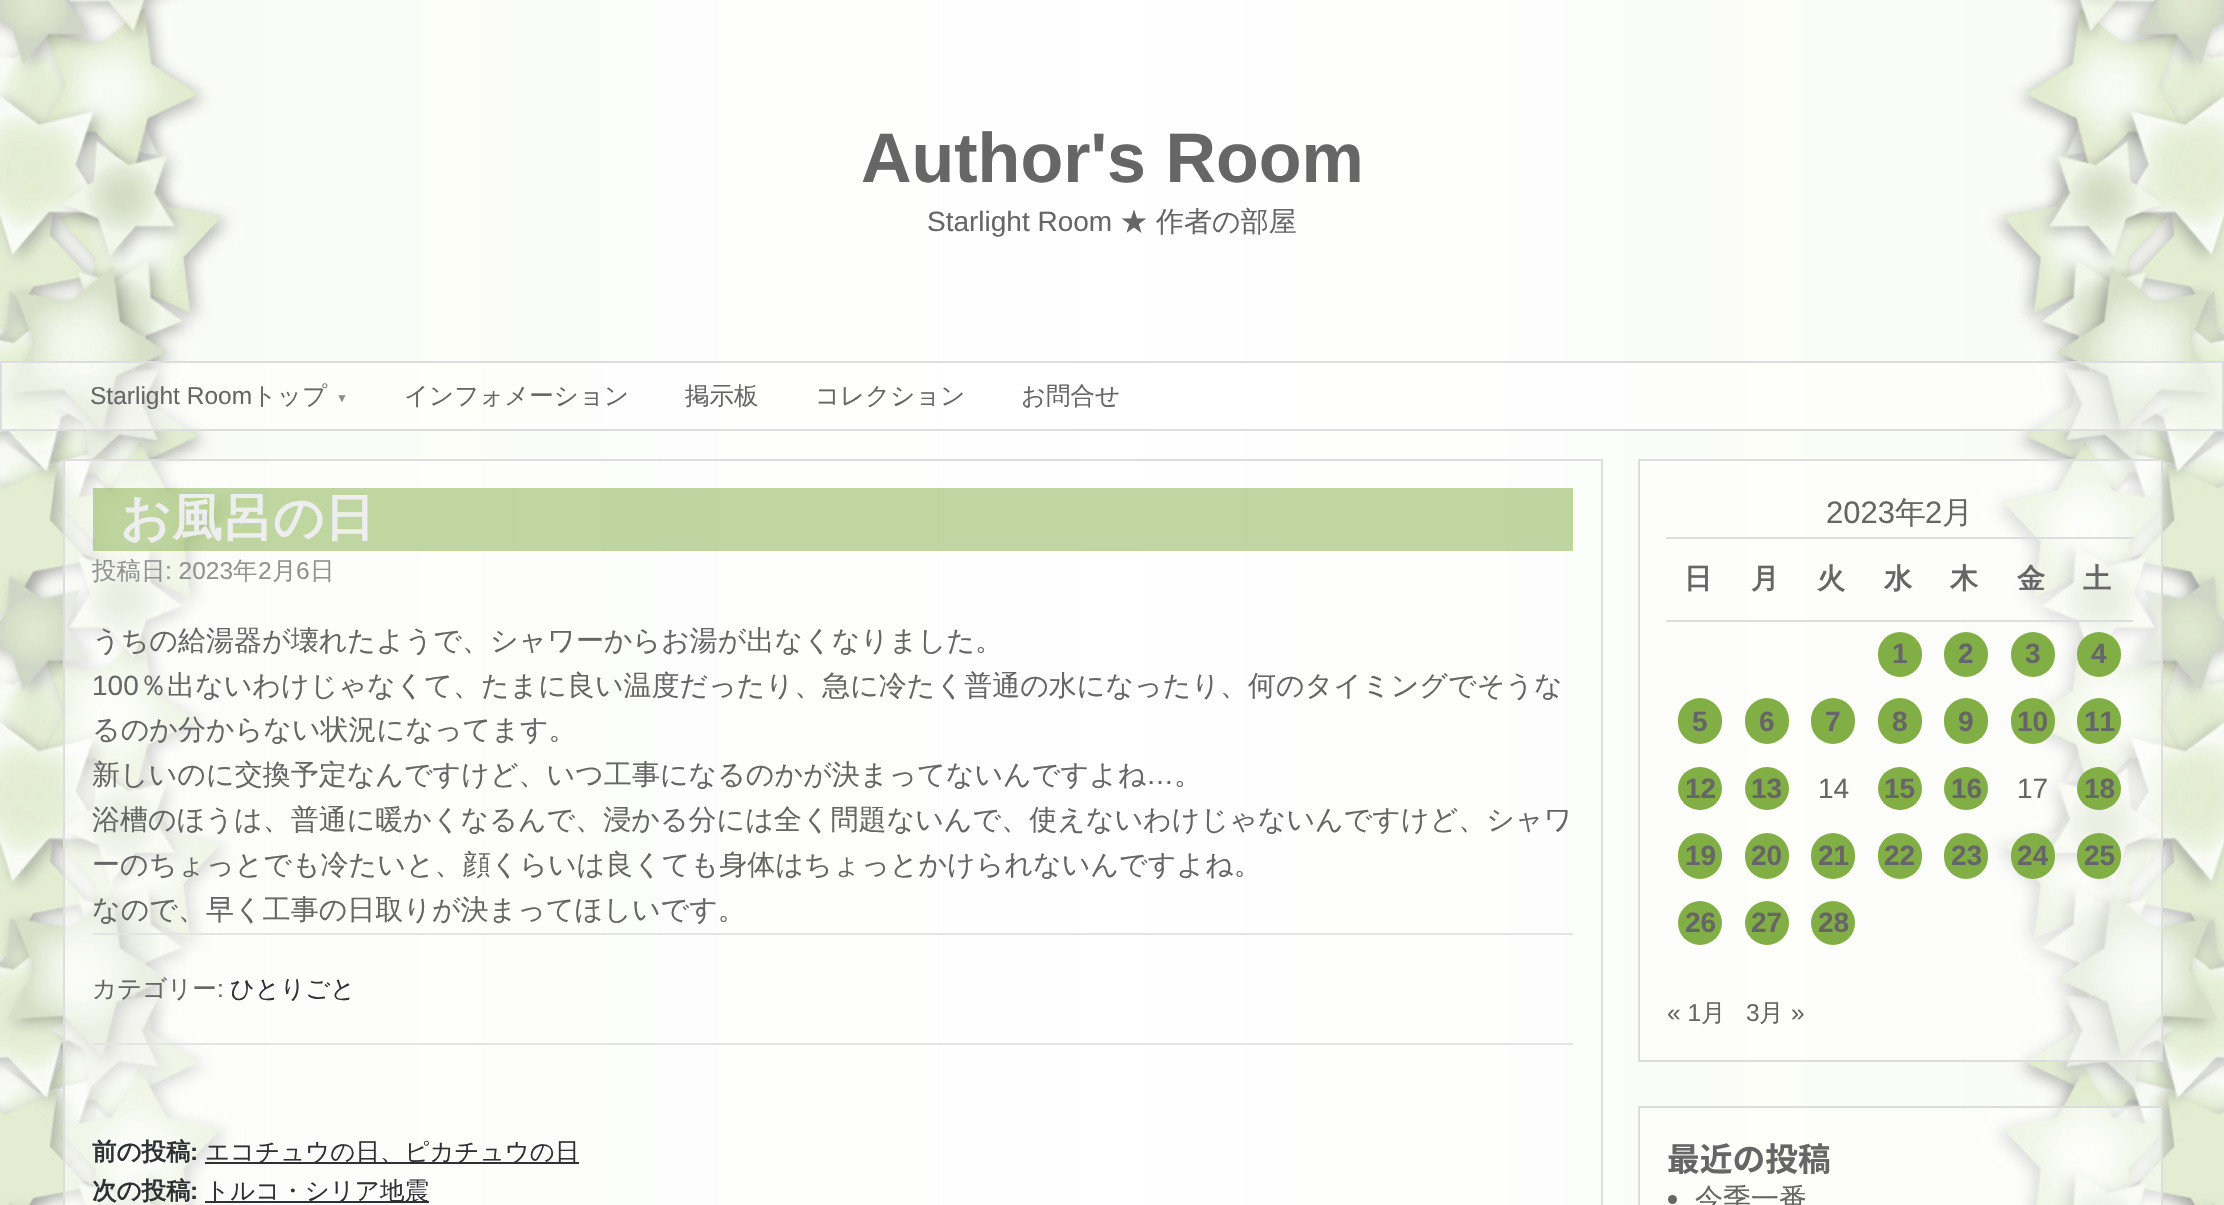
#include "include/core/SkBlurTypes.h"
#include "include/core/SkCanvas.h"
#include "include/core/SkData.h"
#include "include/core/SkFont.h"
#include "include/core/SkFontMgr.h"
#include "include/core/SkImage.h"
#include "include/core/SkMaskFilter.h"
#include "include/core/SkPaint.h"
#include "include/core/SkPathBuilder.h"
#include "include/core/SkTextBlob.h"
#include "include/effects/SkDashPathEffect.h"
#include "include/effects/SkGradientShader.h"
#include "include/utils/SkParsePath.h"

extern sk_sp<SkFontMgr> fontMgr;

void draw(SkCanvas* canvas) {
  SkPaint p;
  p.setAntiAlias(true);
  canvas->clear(SK_ColorWHITE);
  canvas->drawImageRect(SkImages::DeferredFromEncodedData(SkData::MakeFromFileName("images/1.png")), SkRect::MakeLTRB(0, 0, 2224, 1205), SkSamplingOptions());
  p.setColor(SkColorSetARGB(128, 255, 255, 255));
  canvas->drawRect(SkRect::MakeLTRB(1, 362, 2223, 430), p);
  p.setStyle(SkPaint::kStroke_Style);
  p.setStrokeWidth(2);
  p.setColor(SkColorSetRGB(221, 221, 221));
  canvas->drawRect(SkRect::MakeLTRB(1, 362, 2223, 430), p);
  p.setStyle(SkPaint::kFill_Style);
  p.setColor(SkColorSetARGB(128, 255, 255, 255));
  canvas->drawRect(SkRect::MakeLTRB(65, 461, 601, 1205), p);
  p.setStyle(SkPaint::kStroke_Style);
  p.setColor(SkColorSetRGB(221, 221, 221));
  canvas->drawRect(SkRect::MakeLTRB(64, 460, 1602, 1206), p);
  p.setStyle(SkPaint::kFill_Style);
  p.setColor(SkColorSetARGB(128, 130, 174, 70));
  canvas->drawRect(SkRect::MakeLTRB(93, 488, 1573, 551), p);
  p.setColor(SkColorSetRGB(228, 228, 228));
  canvas->drawRect(SkRect::MakeLTRB(93, 933, 1573, 935), p);
  canvas->drawRect(SkRect::MakeLTRB(93, 1043, 1573, 1045), p);
  p.setColor(SkColorSetRGB(48, 49, 53));
  canvas->drawRect(SkRect::MakeLTRB(205, 1162, 579, 1164), p);
  canvas->drawRect(SkRect::MakeLTRB(205, 1201, 429, 1203), p);
  p.setColor(SkColorSetARGB(128, 255, 255, 255));
  canvas->drawRect(SkRect::MakeLTRB(1639, 460, 2162, 1061), p);
  p.setStyle(SkPaint::kStroke_Style);
  p.setColor(SkColorSetRGB(221, 221, 221));
  canvas->drawRect(SkRect::MakeLTRB(1639, 460, 2162, 1061), p);
  p.setStyle(SkPaint::kFill_Style);
  canvas->drawRect(SkRect::MakeLTRB(1666, 537, 2133, 539), p);
  canvas->drawRect(SkRect::MakeLTRB(1666, 620, 2133, 622), p);
  p.setColor(SkColorSetRGB(130, 174, 70));
  canvas->drawRoundRect(SkRect::MakeLTRB(1878, 632, 1922, 677), 22, 22, p);
  canvas->drawRoundRect(SkRect::MakeLTRB(1944, 632, 1988, 677), 22, 22, p);
  canvas->drawRoundRect(SkRect::MakeLTRB(2011, 632, 2055, 677), 22, 22, p);
  canvas->drawRoundRect(SkRect::MakeLTRB(2077, 632, 2121, 677), 22, 22, p);
  canvas->drawRoundRect(SkRect::MakeLTRB(1678, 698, 1722, 744), 22, 22, p);
  canvas->drawRoundRect(SkRect::MakeLTRB(1745, 698, 1789, 744), 22, 22, p);
  canvas->drawRoundRect(SkRect::MakeLTRB(1811, 698, 1855, 744), 22, 22, p);
  canvas->drawRoundRect(SkRect::MakeLTRB(1878, 698, 1922, 744), 22, 22, p);
  canvas->drawRoundRect(SkRect::MakeLTRB(1944, 698, 1988, 744), 22, 22, p);
  canvas->drawRoundRect(SkRect::MakeLTRB(2011, 698, 2055, 744), 22, 22, p);
  canvas->drawRoundRect(SkRect::MakeLTRB(2077, 698, 2121, 744), 22, 22, p);
  canvas->drawRoundRect(SkRect::MakeLTRB(1678, 767, 1722, 810), 21.5f, 21.5f, p);
  canvas->drawRoundRect(SkRect::MakeLTRB(1745, 767, 1789, 810), 21.5f, 21.5f, p);
  canvas->drawRoundRect(SkRect::MakeLTRB(1878, 767, 1922, 810), 21.5f, 21.5f, p);
  canvas->drawRoundRect(SkRect::MakeLTRB(1944, 767, 1988, 810), 21.5f, 21.5f, p);
  canvas->drawRoundRect(SkRect::MakeLTRB(2077, 767, 2121, 810), 21.5f, 21.5f, p);
  canvas->drawRoundRect(SkRect::MakeLTRB(1678, 833, 1722, 879), 22, 22, p);
  canvas->drawRoundRect(SkRect::MakeLTRB(1745, 833, 1789, 879), 22, 22, p);
  canvas->drawRoundRect(SkRect::MakeLTRB(1811, 833, 1855, 879), 22, 22, p);
  canvas->drawRoundRect(SkRect::MakeLTRB(1878, 833, 1922, 879), 22, 22, p);
  canvas->drawRoundRect(SkRect::MakeLTRB(1944, 833, 1988, 879), 22, 22, p);
  canvas->drawRoundRect(SkRect::MakeLTRB(2011, 833, 2055, 879), 22, 22, p);
  canvas->drawRoundRect(SkRect::MakeLTRB(2077, 833, 2121, 879), 22, 22, p);
  canvas->drawCircle(1700, 923, 22, p);
  canvas->drawCircle(1767, 923, 22, p);
  canvas->drawCircle(1833, 923, 22, p);
  p.setColor(SkColorSetARGB(128, 255, 255, 255));
  canvas->drawRect(SkRect::MakeLTRB(1639, 1107, 2162, 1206), p);
  p.setStyle(SkPaint::kStroke_Style);
  p.setColor(SkColorSetRGB(221, 221, 221));
  canvas->drawRect(SkRect::MakeLTRB(1639, 1107, 2162, 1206), p);
  p.setStyle(SkPaint::kFill_Style);
  p.setColor(SkColorSetRGB(102, 102, 102));
  canvas->drawCircle(1672.5f, 1199.5f, 4.5f, p);
  SkFont font1(fontMgr->matchFamilyStyle("Liberation Sans", SkFontStyle::Bold()), 70);
  font1.setSubpixel(true);
  canvas->drawString("Author's Room", 861, 182, font1, p);
  SkFont font2(fontMgr->matchFamilyStyle("Liberation Sans", SkFontStyle::Normal()), 28);
  font2.setSubpixel(true);
  canvas->drawString("Starlight Room", 927, 231, font2, p);
  SkFont font3(fontMgr->matchFamilyStyle("WenQuanYi Zen Hei", SkFontStyle(500, SkFontStyle::kNormal_Width, SkFontStyle::kUpright_Slant)), 28);
  font3.setSubpixel(true);
  canvas->drawString("★", 1120, 231, font3, p);
  canvas->drawString("作者の部屋", 1156, 231, font3, p);
  SkFont font4(fontMgr->matchFamilyStyle("Liberation Sans", SkFontStyle::Normal()), 24.5f);
  font4.setSubpixel(true);
  canvas->drawString("Starlight Room", 90, 404, font4, p);
  SkFont font5(fontMgr->matchFamilyStyle("WenQuanYi Zen Hei", SkFontStyle(500, SkFontStyle::kNormal_Width, SkFontStyle::kUpright_Slant)), 24.5f);
  font5.setSubpixel(true);
  canvas->drawString("トップ", 252, 404, font5, p);
  SkFont font6(fontMgr->matchFamilyStyle("Liberation Sans", SkFontStyle::Normal()), 12);
  font6.setSubpixel(true);
  p.setColor(SkColorSetRGB(140, 140, 139));
  canvas->drawString("▼", 336, 402, font6, p);
  p.setColor(SkColorSetRGB(102, 102, 102));
  canvas->drawString("インフォメーション", 404, 404, font5, p);
  canvas->drawString("掲示板", 685, 404, font5, p);
  canvas->drawString("コレクション", 815, 404, font5, p);
  canvas->drawString("お問合せ", 1021, 404, font5, p);
  SkFont font7(fontMgr->matchFamilyStyle("WenQuanYi Zen Hei", SkFontStyle::Bold()), 50.5f);
  font7.setSubpixel(true);
  p.setColor(SkColorSetRGB(238, 238, 238));
  canvas->drawString("お風呂の日", 120, 535, font7, p);
  p.setColor(SkColorSetRGB(146, 146, 146));
  canvas->drawString("投稿日", 92, 579, font5, p);
  canvas->drawString(": 2023", 165, 579, font4, p);
  canvas->drawString("年", 233, 579, font5, p);
  canvas->drawString("2", 258, 579, font4, p);
  canvas->drawString("月", 272, 579, font5, p);
  canvas->drawString("6", 296, 579, font4, p);
  canvas->drawString("日", 310, 579, font5, p);
  p.setColor(SkColorSetRGB(102, 102, 102));
  canvas->drawString("うちの給湯器が壊れたようで、シャワーからお湯が出なくなりました。", 92, 650, font3, p);
  canvas->drawString("100", 92, 695, font2, p);
  canvas->drawString("％出ないわけじゃなくて、たまに良い温度だったり、急に冷たく普通の水になったり、何のタイミングでそうな", 139, 695, font3, p);
  canvas->drawString("るのか分からない状況になってます。", 92, 739, font3, p);
  canvas->drawString("新しいのに交換予定なんですけど、いつ工事になるのかが決まってないんですよね", 92, 784, font3, p);
  canvas->drawString("…", 1146, 784, font2, p);
  canvas->drawString("。", 1174, 784, font3, p);
  canvas->drawString("浴槽のほうは、普通に暖かくなるんで、浸かる分には全く問題ないんで、使えないわけじゃないんですけど、シャワ", 92, 829, font3, p);
  canvas->drawString("ーのちょっとでも冷たいと、顔くらいは良くても身体はちょっとかけられないんですよね。", 92, 874, font3, p);
  canvas->drawString("なので、早く工事の日取りが決まってほしいです。", 92, 919, font3, p);
  canvas->drawString("カテゴリー", 92, 997, font5, p);
  canvas->drawString(":", 217, 997, font4, p);
  p.setColor(SkColorSetRGB(48, 49, 53));
  canvas->drawString("ひとりごと", 230, 997, font5, p);
  SkFont font8(fontMgr->matchFamilyStyle("WenQuanYi Zen Hei", SkFontStyle::Bold()), 24.5f);
  font8.setSubpixel(true);
  canvas->drawString("前の投稿", 92, 1160, font8, p);
  SkFont font9(fontMgr->matchFamilyStyle("Liberation Sans", SkFontStyle::Bold()), 24.5f);
  font9.setSubpixel(true);
  canvas->drawString(":", 190, 1160, font9, p);
  canvas->drawString("エコチュウの日、ピカチュウの日", 205, 1160, font5, p);
  canvas->drawString("次の投稿", 92, 1199, font8, p);
  canvas->drawString(":", 190, 1199, font9, p);
  canvas->drawString("トルコ・シリア地震", 205, 1199, font5, p);
  SkFont font10(fontMgr->matchFamilyStyle("Liberation Sans", SkFontStyle::Normal()), 31);
  font10.setSubpixel(true);
  p.setColor(SkColorSetRGB(102, 102, 102));
  canvas->drawString("2023", 1826, 523, font10, p);
  SkFont font11(fontMgr->matchFamilyStyle("WenQuanYi Zen Hei", SkFontStyle(500, SkFontStyle::kNormal_Width, SkFontStyle::kUpright_Slant)), 31);
  font11.setSubpixel(true);
  canvas->drawString("年", 1895, 523, font11, p);
  canvas->drawString("2", 1925, 523, font10, p);
  canvas->drawString("月", 1942, 523, font11, p);
  SkFont font12(fontMgr->matchFamilyStyle("WenQuanYi Zen Hei", SkFontStyle::Bold()), 28);
  font12.setSubpixel(true);
  canvas->drawString("日", 1684, 588, font12, p);
  canvas->drawString("月", 1751, 588, font12, p);
  canvas->drawString("火", 1817, 588, font12, p);
  canvas->drawString("水", 1884, 588, font12, p);
  canvas->drawString("木", 1950, 588, font12, p);
  canvas->drawString("金", 2017, 588, font12, p);
  canvas->drawString("土", 2083, 588, font12, p);
  SkFont font13(fontMgr->matchFamilyStyle("Liberation Sans", SkFontStyle::Bold()), 28);
  font13.setSubpixel(true);
  canvas->drawString("1", 1892, 663, font13, p);
  canvas->drawString("2", 1958, 663, font13, p);
  canvas->drawString("3", 2025, 663, font13, p);
  canvas->drawString("4", 2091, 663, font13, p);
  canvas->drawString("5", 1692, 731, font13, p);
  canvas->drawString("6", 1759, 731, font13, p);
  canvas->drawString("7", 1825, 731, font13, p);
  canvas->drawString("8", 1892, 731, font13, p);
  canvas->drawString("9", 1958, 731, font13, p);
  canvas->drawString("10", 2017, 731, font13, p);
  canvas->drawString("11", 2084, 731, font13, p);
  canvas->drawString("12", 1685, 798, font13, p);
  canvas->drawString("13", 1751, 798, font13, p);
  canvas->drawString("14", 1818, 798, font2, p);
  canvas->drawString("15", 1884, 798, font13, p);
  canvas->drawString("16", 1951, 798, font13, p);
  canvas->drawString("17", 2017, 798, font2, p);
  canvas->drawString("18", 2084, 798, font13, p);
  canvas->drawString("19", 1685, 865, font13, p);
  canvas->drawString("20", 1751, 865, font13, p);
  canvas->drawString("21", 1818, 865, font13, p);
  canvas->drawString("22", 1884, 865, font13, p);
  canvas->drawString("23", 1951, 865, font13, p);
  canvas->drawString("24", 2017, 865, font13, p);
  canvas->drawString("25", 2084, 865, font13, p);
  canvas->drawString("26", 1685, 932, font13, p);
  canvas->drawString("27", 1751, 932, font13, p);
  canvas->drawString("28", 1818, 932, font13, p);
  canvas->drawString("« 1", 1667, 1021, font4, p);
  canvas->drawString("月", 1701, 1021, font5, p);
  canvas->drawString("3", 1746, 1021, font4, p);
  canvas->drawString("月", 1759, 1021, font5, p);
  canvas->drawString("»", 1791, 1021, font4, p);
  SkFont font14(fontMgr->matchFamilyStyle("Noto Sans JP", SkFontStyle::Bold()), 32.75f);
  font14.setSubpixel(true);
  canvas->drawString("最近の投稿", 1667, 1171, font14, p);
  canvas->drawString("今季一番", 1695, 1208, font3, p);
}
